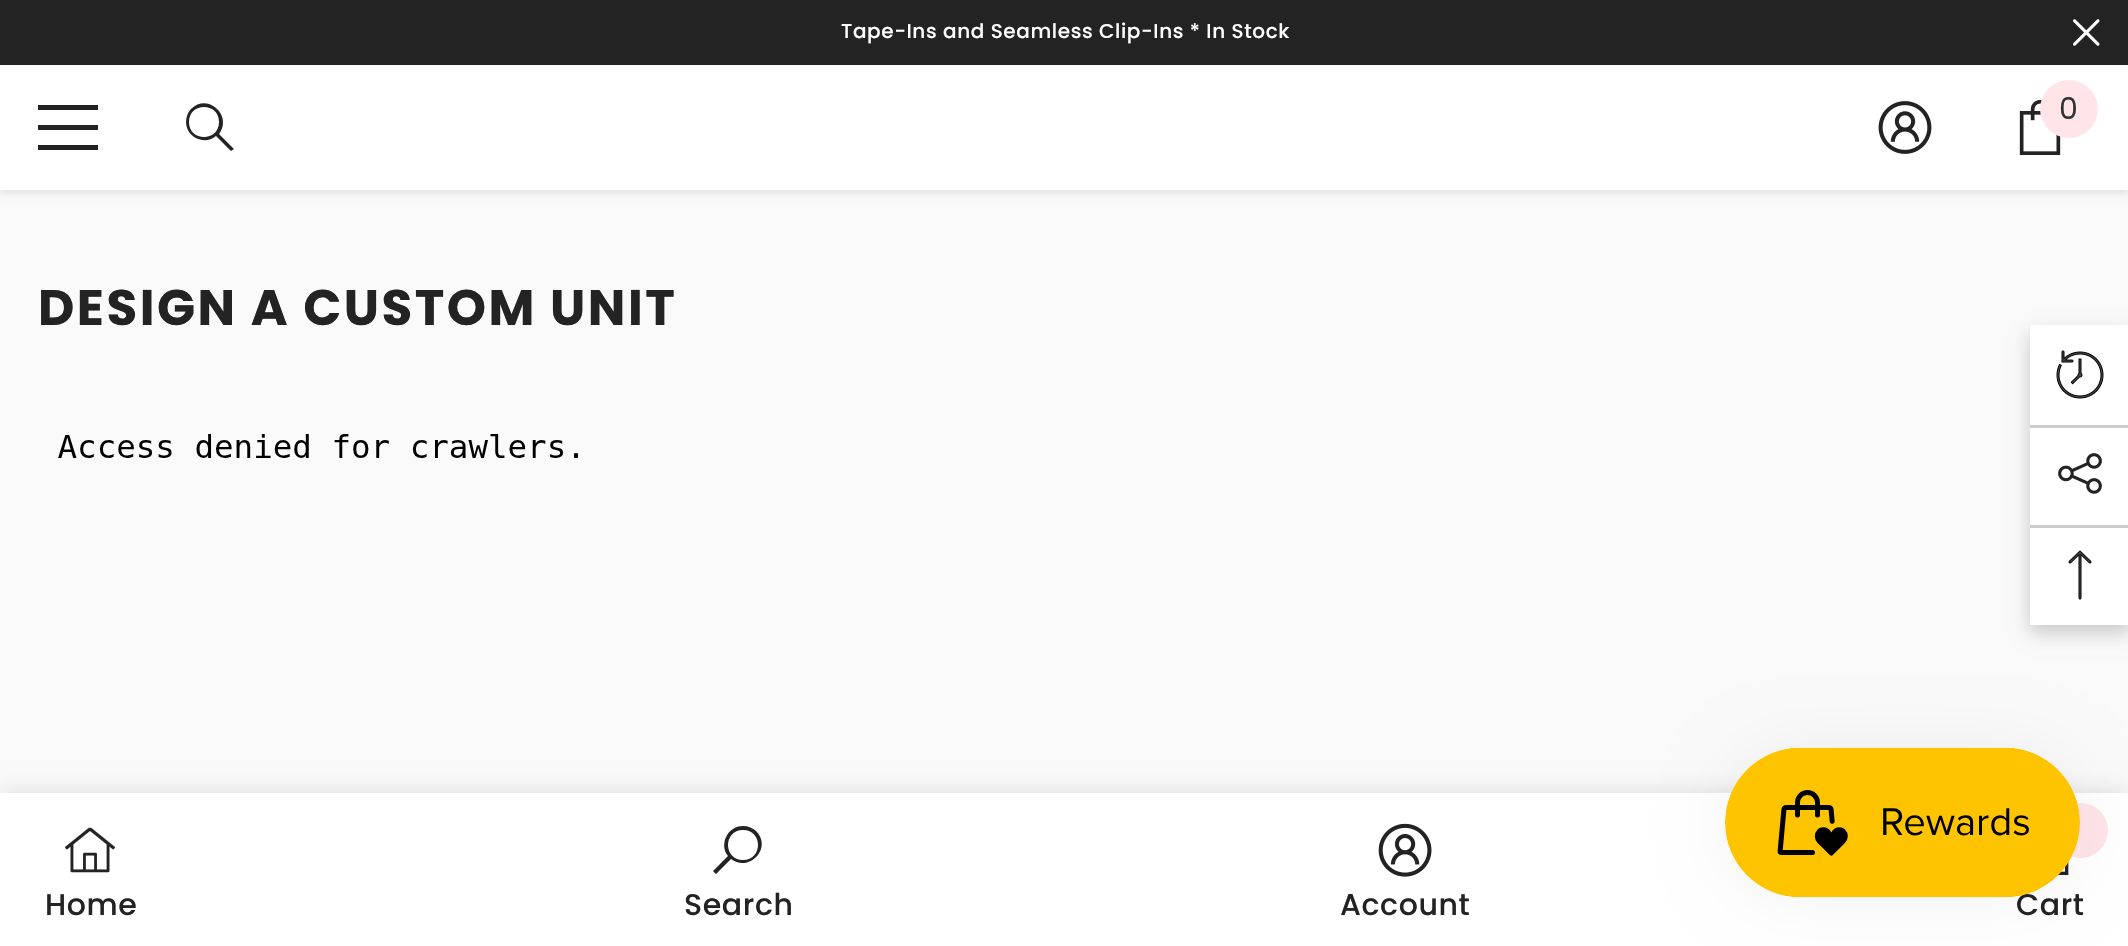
#include "include/core/SkBlurTypes.h"
#include "include/core/SkCanvas.h"
#include "include/core/SkData.h"
#include "include/core/SkFont.h"
#include "include/core/SkFontMgr.h"
#include "include/core/SkImage.h"
#include "include/core/SkMaskFilter.h"
#include "include/core/SkPaint.h"
#include "include/core/SkPathBuilder.h"
#include "include/core/SkTextBlob.h"
#include "include/effects/SkDashPathEffect.h"
#include "include/effects/SkGradientShader.h"
#include "include/utils/SkParsePath.h"

extern sk_sp<SkFontMgr> fontMgr;

void draw(SkCanvas* canvas) {
  SkPaint p;
  p.setAntiAlias(true);
  auto spacedText = [&](const char* s, float x, float y, const SkFont& font, const SkPaint& ink, float letter, float word) {
    std::vector<SkGlyphID> glyphs(font.countText(s, strlen(s), SkTextEncoding::kUTF8));
    std::vector<float> xs(glyphs.size());
    font.textToGlyphs(s, strlen(s), SkTextEncoding::kUTF8, glyphs);
    font.getXPos(glyphs, xs, x);
    float extra = 0;
    for (size_t i = 0; i < glyphs.size(); i++) {
      xs[i] += extra;
      extra += letter + word * (glyphs[i] == font.unicharToGlyph(' '));
    }
    canvas->drawTextBlob(SkTextBlob::MakeFromPosHGlyphs(glyphs, xs, y, font), 0, 0, ink);
  };
  canvas->clear(SkColorSetRGB(250, 250, 250));
  p.setColor(SkColorSetRGB(35, 35, 35));
  canvas->drawRect(SkRect::MakeLTRB(0, 0, 2128, 65), p);
  canvas->drawImageRect(SkImages::DeferredFromEncodedData(SkData::MakeFromFileName("images/1.png")), SkRect::MakeLTRB(2073, 19, 2100, 46), SkSamplingOptions());
  p.setColor(SkColorSetARGB(26, 0, 0, 0));
  p.setMaskFilter(SkMaskFilter::MakeBlur(kNormal_SkBlurStyle, 4));
  canvas->drawRect(SkRect::MakeLTRB(0, 68, 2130, 193), p);
  p.setMaskFilter(nullptr);
  p.setColor(SK_ColorWHITE);
  canvas->drawRect(SkRect::MakeLTRB(0, 65, 2128, 190), p);
  p.setColor(SkColorSetRGB(35, 35, 35));
  canvas->drawRect(SkRect::MakeLTRB(38, 125, 98, 130), p);
  canvas->drawRect(SkRect::MakeLTRB(38, 105, 98, 110), p);
  canvas->drawRect(SkRect::MakeLTRB(38, 145, 98, 150), p);
  canvas->drawPath(SkPathBuilder().moveTo(186, 122).cubicTo(186, 137, 204, 146, 216, 136).lineTo(231, 151).lineTo(234, 149).lineTo(219, 134).cubicTo(233, 116, 208, 92, 191, 109).cubicTo(188, 112, 186, 117, 186, 122).close().moveTo(189, 122).cubicTo(189, 102, 219, 102, 219, 122).cubicTo(219, 142, 189, 142, 189, 122).close().detach(), p);
  canvas->drawImageRect(SkImages::DeferredFromEncodedData(SkData::MakeFromFileName("images/2.png")), SkRect::MakeLTRB(1878, 101, 1932, 154), SkSamplingOptions());
  canvas->drawImageRect(SkImages::DeferredFromEncodedData(SkData::MakeFromFileName("images/3.png")), SkRect::MakeLTRB(2019, 100, 2061, 155), SkSamplingOptions());
  p.setColor(SkColorSetRGB(255, 229, 232));
  canvas->drawCircle(2069, 109, 29, p);
  canvas->drawImageRect(SkImages::DeferredFromEncodedData(SkData::MakeFromFileName("images/4.png")), SkRect::MakeLTRB(58, 434, 578, 458), SkSamplingOptions());
  p.setColor(SkColorSetARGB(31, 0, 0, 0));
  p.setMaskFilter(SkMaskFilter::MakeBlur(kNormal_SkBlurStyle, 11));
  canvas->drawRect(SkRect::MakeLTRB(0, 793, 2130, 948), p);
  p.setMaskFilter(nullptr);
  p.setColor(SK_ColorWHITE);
  canvas->drawRect(SkRect::MakeLTRB(0, 793, 2128, 946), p);
  canvas->drawImageRect(SkImages::DeferredFromEncodedData(SkData::MakeFromFileName("images/5.png")), SkRect::MakeLTRB(65, 827, 115, 873), SkSamplingOptions());
  p.setColor(SkColorSetRGB(35, 35, 35));
  canvas->drawPath(SkPathBuilder().moveTo(743, 826).cubicTo(727, 826, 719, 845, 728, 856).lineTo(713, 871).lineTo(716, 874).lineTo(731, 859).cubicTo(749, 873, 773, 848, 756, 831).cubicTo(753, 828, 748, 826, 743, 826).close().moveTo(743, 830).cubicTo(763, 830, 763, 860, 743, 860).cubicTo(723, 860, 723, 830, 743, 830).close().detach(), p);
  canvas->drawImageRect(SkImages::DeferredFromEncodedData(SkData::MakeFromFileName("images/6.png")), SkRect::MakeLTRB(1378, 823, 1432, 877), SkSamplingOptions());
  p.setColor(SkColorSetRGB(255, 229, 232));
  canvas->drawCircle(2080.5f, 830.5f, 27.5f, p);
  canvas->drawImageRect(SkImages::DeferredFromEncodedData(SkData::MakeFromFileName("images/7.png")), SkRect::MakeLTRB(2058, 861, 2069, 875), SkSamplingOptions());
  p.setColor(SkColorSetARGB(51, 0, 0, 0));
  p.setMaskFilter(SkMaskFilter::MakeBlur(kNormal_SkBlurStyle, 9));
  canvas->drawRect(SkRect::MakeLTRB(2030, 333, 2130, 633), p);
  p.setMaskFilter(nullptr);
  p.setColor(SK_ColorWHITE);
  canvas->drawRect(SkRect::MakeLTRB(2030, 325, 2128, 625), p);
  canvas->drawImageRect(SkImages::DeferredFromEncodedData(SkData::MakeFromFileName("images/8.png")), SkRect::MakeLTRB(2056, 350, 2104, 399), SkSamplingOptions());
  p.setColor(SkColorSetRGB(204, 204, 204));
  canvas->drawRect(SkRect::MakeLTRB(2030, 425, 2128, 428), p);
  canvas->drawImageRect(SkImages::DeferredFromEncodedData(SkData::MakeFromFileName("images/9.png")), SkRect::MakeLTRB(2058, 453, 2102, 494), SkSamplingOptions());
  canvas->drawRect(SkRect::MakeLTRB(2030, 525, 2128, 528), p);
  canvas->drawImageRect(SkImages::DeferredFromEncodedData(SkData::MakeFromFileName("images/10.png")), SkRect::MakeLTRB(2068, 550, 2092, 600), SkSamplingOptions());
  p.setColor(SkColorSetARGB(13, 0, 0, 0));
  p.setMaskFilter(SkMaskFilter::MakeBlur(kNormal_SkBlurStyle, 31));
  canvas->drawRoundRect(SkRect::MakeLTRB(1725, 748, 2080, 898), 75, 75, p);
  p.setMaskFilter(nullptr);
  SkFont font1(fontMgr->matchFamilyStyle("Poppins", SkFontStyle(500, SkFontStyle::kNormal_Width, SkFontStyle::kUpright_Slant)), 20);
  font1.setSubpixel(true);
  p.setColor(SK_ColorWHITE);
  spacedText("Tape-Ins and Seamless Clip-Ins * In Stock", 841, 38, font1, p, 0.6f, 0);
  SkFont font2(fontMgr->matchFamilyStyle("Poppins", SkFontStyle::Normal()), 30);
  font2.setSubpixel(true);
  p.setColor(SkColorSetRGB(50, 50, 50));
  spacedText("0", 2059, 119, font2, p, 0.6f, 0);
  SkFont font3(fontMgr->matchFamilyStyle("Poppins", SkFontStyle::Bold()), 50);
  font3.setSubpixel(true);
  p.setColor(SkColorSetRGB(35, 35, 35));
  spacedText("DESIGN A CUSTOM UNIT", 38, 325, font3, p, 2.5f, 0);
  SkFont font4(fontMgr->matchFamilyStyle("Poppins", SkFontStyle(500, SkFontStyle::kNormal_Width, SkFontStyle::kUpright_Slant)), 30);
  font4.setSubpixel(true);
  spacedText("Home", 45, 915, font4, p, 0.6f, 0);
  spacedText("Search", 684, 915, font4, p, 0.6f, 0);
  spacedText("Account", 1340, 915, font4, p, 0.6f, 0);
  spacedText("Cart", 2016, 915, font4, p, 0.6f, 0);
  canvas->drawImageRect(SkImages::DeferredFromEncodedData(SkData::MakeFromFileName("images/11.png")), SkRect::MakeLTRB(1725, 747, 2080, 898), SkSamplingOptions());
}
